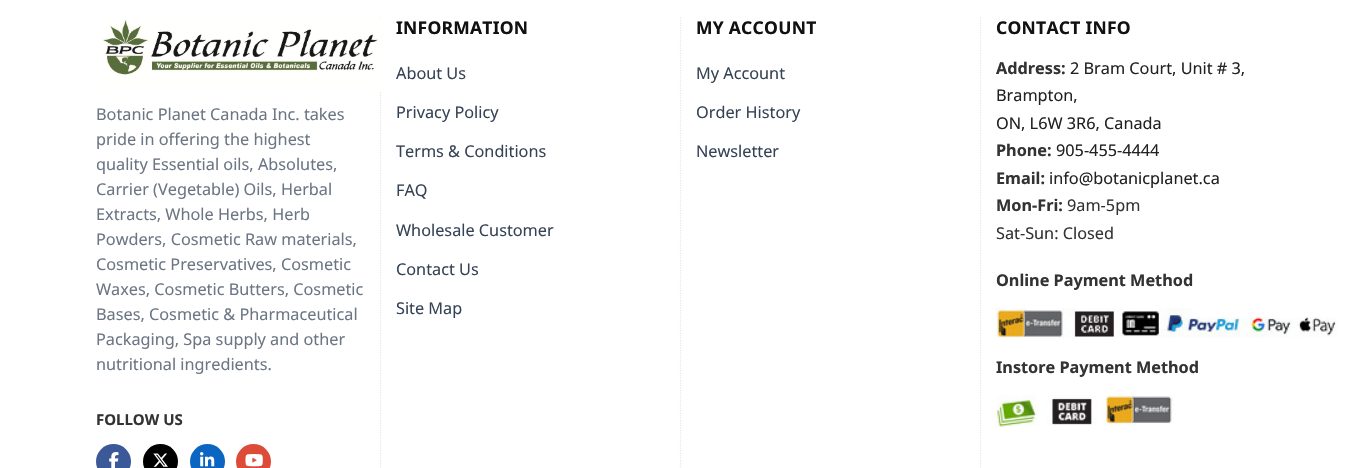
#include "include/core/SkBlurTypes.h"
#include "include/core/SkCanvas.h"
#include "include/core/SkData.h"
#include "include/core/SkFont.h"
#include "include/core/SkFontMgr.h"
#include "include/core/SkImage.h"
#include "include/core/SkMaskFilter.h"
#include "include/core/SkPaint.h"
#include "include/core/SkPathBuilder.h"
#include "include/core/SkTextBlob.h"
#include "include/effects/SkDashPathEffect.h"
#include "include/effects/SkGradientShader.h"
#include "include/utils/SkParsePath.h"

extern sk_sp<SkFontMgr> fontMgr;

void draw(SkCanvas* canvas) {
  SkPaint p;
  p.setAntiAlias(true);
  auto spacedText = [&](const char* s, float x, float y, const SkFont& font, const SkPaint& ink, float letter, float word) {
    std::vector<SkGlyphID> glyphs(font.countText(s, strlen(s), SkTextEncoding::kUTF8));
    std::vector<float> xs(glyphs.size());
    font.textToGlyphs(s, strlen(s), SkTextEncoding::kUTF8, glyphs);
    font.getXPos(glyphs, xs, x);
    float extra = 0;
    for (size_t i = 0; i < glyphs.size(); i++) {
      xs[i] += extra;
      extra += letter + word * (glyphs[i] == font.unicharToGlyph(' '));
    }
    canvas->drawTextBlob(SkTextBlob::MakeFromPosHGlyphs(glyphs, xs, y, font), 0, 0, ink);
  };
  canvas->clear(SK_ColorWHITE);
  p.setStyle(SkPaint::kStroke_Style);
  p.setStrokeWidth(1.2f);
  p.setColor(SkColorSetRGB(231, 231, 231));
  p.setPathEffect(SkDashPathEffect::Make({{1.25f, 1.25f}}, 0));
  canvas->drawPath(SkPathBuilder().moveTo(380.5f, 17.5f).lineTo(380.5f, 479).detach(), p);
  p.setPathEffect(nullptr);
  canvas->drawImageRect(SkImages::DeferredFromEncodedData(SkData::MakeFromFileName("images/1.png")), SkRect::MakeLTRB(102, 18, 381, 91), SkSamplingOptions());
  p.setStyle(SkPaint::kFill_Style);
  p.setColor(SkColorSetRGB(59, 89, 152));
  canvas->drawCircle(113.5f, 461.5f, 17.5f, p);
  canvas->drawImageRect(SkImages::DeferredFromEncodedData(SkData::MakeFromFileName("images/2.png")), SkRect::MakeLTRB(109, 452, 119, 468), SkSamplingOptions());
  p.setColor(SK_ColorBLACK);
  canvas->drawCircle(160.5f, 461.5f, 17.5f, p);
  canvas->drawImageRect(SkImages::DeferredFromEncodedData(SkData::MakeFromFileName("images/3.png")), SkRect::MakeLTRB(153, 453, 168, 467), SkSamplingOptions());
  p.setColor(SkColorSetRGB(10, 102, 194));
  canvas->drawCircle(207.5f, 461.5f, 17.5f, p);
  canvas->drawImageRect(SkImages::DeferredFromEncodedData(SkData::MakeFromFileName("images/4.png")), SkRect::MakeLTRB(200, 452, 215, 467), SkSamplingOptions());
  p.setColor(SkColorSetRGB(221, 75, 57));
  canvas->drawCircle(253.5f, 461.5f, 17.5f, p);
  canvas->drawImageRect(SkImages::DeferredFromEncodedData(SkData::MakeFromFileName("images/5.png")), SkRect::MakeLTRB(245, 454, 263, 467), SkSamplingOptions());
  p.setStyle(SkPaint::kStroke_Style);
  p.setColor(SkColorSetRGB(231, 231, 231));
  p.setPathEffect(SkDashPathEffect::Make({{1.25f, 1.25f}}, 0));
  canvas->drawPath(SkPathBuilder().moveTo(680.5f, 17.5f).lineTo(680.5f, 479).detach(), p);
  p.setPathEffect(nullptr);
  p.setPathEffect(SkDashPathEffect::Make({{1.25f, 1.25f}}, 0));
  canvas->drawPath(SkPathBuilder().moveTo(980.5f, 17.5f).lineTo(980.5f, 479).detach(), p);
  p.setPathEffect(nullptr);
  canvas->drawImageRect(SkImages::DeferredFromEncodedData(SkData::MakeFromFileName("images/6.png")), SkRect::MakeLTRB(996, 307, 1338, 338), SkSamplingOptions());
  canvas->drawImageRect(SkImages::DeferredFromEncodedData(SkData::MakeFromFileName("images/7.png")), SkRect::MakeLTRB(996, 395, 1174, 427), SkSamplingOptions());
  SkFont font1(fontMgr->matchFamilyStyle("Noto Sans", SkFontStyle::Normal()), 16.25f);
  font1.setSubpixel(true);
  p.setStyle(SkPaint::kFill_Style);
  p.setColor(SkColorSetRGB(108, 118, 132));
  canvas->drawString("Botanic Planet Canada Inc. takes", 96, 120, font1, p);
  canvas->drawString("pride in offering the highest", 96, 145, font1, p);
  canvas->drawString("quality Essential oils, Absolutes,", 96, 170, font1, p);
  canvas->drawString("Carrier (Vegetable) Oils, Herbal", 96, 195, font1, p);
  canvas->drawString("Extracts, Whole Herbs, Herb", 96, 220, font1, p);
  canvas->drawString("Powders, Cosmetic Raw materials,", 96, 245, font1, p);
  canvas->drawString("Cosmetic Preservatives, Cosmetic", 96, 270, font1, p);
  canvas->drawString("Waxes, Cosmetic Butters, Cosmetic", 96, 295, font1, p);
  canvas->drawString("Bases, Cosmetic & Pharmaceutical", 96, 320, font1, p);
  canvas->drawString("Packaging, Spa supply and other", 96, 345, font1, p);
  canvas->drawString("nutritional ingredients.", 96, 370, font1, p);
  SkFont font2(fontMgr->matchFamilyStyle("Noto Sans", SkFontStyle::Bold()), 15);
  font2.setSubpixel(true);
  p.setColor(SkColorSetRGB(51, 51, 51));
  canvas->drawString("FOLLOW US", 96, 425, font2, p);
  SkFont font3(fontMgr->matchFamilyStyle("Noto Sans", SkFontStyle::Bold()), 17.5f);
  font3.setSubpixel(true);
  p.setColor(SkColorSetRGB(17, 17, 17));
  spacedText("INFORMATION", 396, 34, font3, p, 0.25f, 0);
  p.setColor(SkColorSetRGB(53, 67, 85));
  canvas->drawString("About Us", 396, 79, font1, p);
  canvas->drawString("Privacy Policy", 396, 118, font1, p);
  canvas->drawString("Terms & Conditions", 396, 157, font1, p);
  canvas->drawString("FAQ", 396, 196, font1, p);
  canvas->drawString("Wholesale Customer", 396, 236, font1, p);
  canvas->drawString("Contact Us", 396, 275, font1, p);
  canvas->drawString("Site Map", 396, 314, font1, p);
  p.setColor(SkColorSetRGB(17, 17, 17));
  spacedText("MY ACCOUNT", 696, 34, font3, p, 0.25f, 0);
  p.setColor(SkColorSetRGB(53, 67, 85));
  canvas->drawString("My Account", 696, 79, font1, p);
  canvas->drawString("Order History", 696, 118, font1, p);
  canvas->drawString("Newsletter", 696, 157, font1, p);
  p.setColor(SkColorSetRGB(17, 17, 17));
  spacedText("CONTACT INFO", 996, 34, font3, p, 0.25f, 0);
  SkFont font4(fontMgr->matchFamilyStyle("Noto Sans", SkFontStyle::Bold()), 16.25f);
  font4.setSubpixel(true);
  p.setColor(SkColorSetRGB(51, 51, 51));
  canvas->drawString("Address:", 996, 74, font4, p);
  p.setColor(SkColorSetRGB(34, 34, 34));
  canvas->drawString("2 Bram Court, Unit # 3,", 1070, 74, font1, p);
  canvas->drawString("Brampton,", 996, 101, font1, p);
  canvas->drawString("ON, L6W 3R6, Canada", 996, 129, font1, p);
  p.setColor(SkColorSetRGB(51, 51, 51));
  canvas->drawString("Phone:", 996, 156, font4, p);
  p.setColor(SkColorSetRGB(34, 34, 34));
  canvas->drawString("905-455-4444", 1056, 156, font1, p);
  p.setColor(SkColorSetRGB(51, 51, 51));
  canvas->drawString("Email:", 996, 184, font4, p);
  p.setColor(SkColorSetRGB(34, 34, 34));
  canvas->drawString("info@botanicplanet.ca", 1049, 184, font1, p);
  p.setColor(SkColorSetRGB(51, 51, 51));
  canvas->drawString("Mon-Fri:", 996, 211, font4, p);
  canvas->drawString("9am-5pm", 1067, 211, font1, p);
  canvas->drawString("Sat-Sun: Closed", 996, 239, font1, p);
  canvas->drawString("Online Payment Method", 996, 286, font4, p);
  canvas->drawString("Instore Payment Method", 996, 373, font4, p);
}
